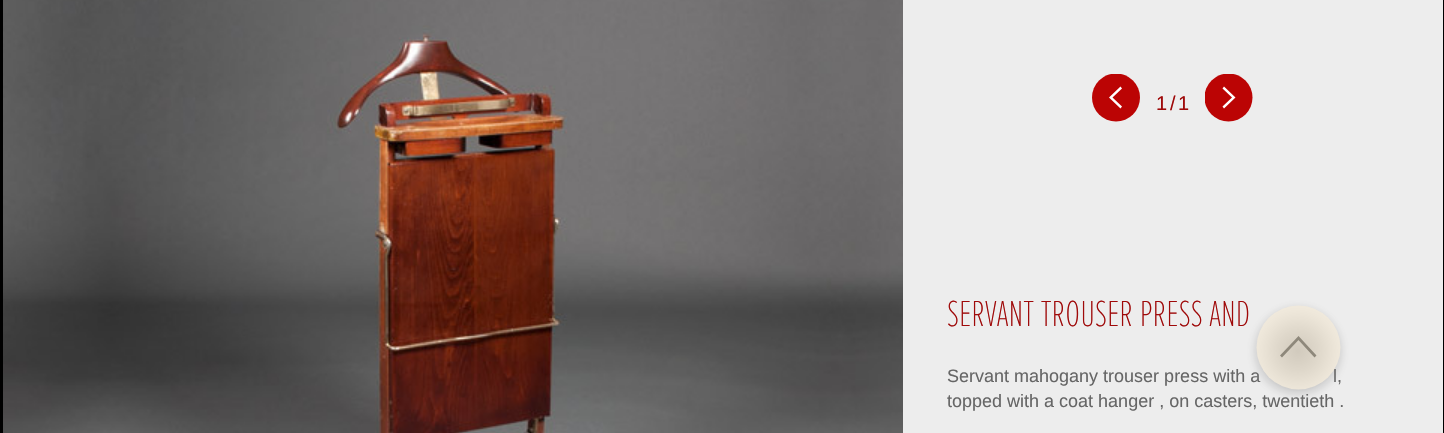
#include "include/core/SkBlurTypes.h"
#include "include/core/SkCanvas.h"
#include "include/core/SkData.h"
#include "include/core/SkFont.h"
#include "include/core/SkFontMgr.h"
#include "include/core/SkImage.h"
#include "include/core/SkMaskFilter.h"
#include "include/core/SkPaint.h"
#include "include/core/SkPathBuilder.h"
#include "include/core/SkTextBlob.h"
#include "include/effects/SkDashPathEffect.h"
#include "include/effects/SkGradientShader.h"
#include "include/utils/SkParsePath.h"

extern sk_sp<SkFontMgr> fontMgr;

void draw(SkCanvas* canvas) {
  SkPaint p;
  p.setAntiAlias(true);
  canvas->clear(SK_ColorBLACK);
  canvas->drawImageRect(SkImages::DeferredFromEncodedData(SkData::MakeFromFileName("images/1.png")), SkRect::MakeLTRB(3, 0, 903, 433), SkSamplingOptions());
  p.setColor(SkColorSetRGB(237, 237, 237));
  canvas->drawRect(SkRect::MakeLTRB(903, 0, 1443, 433), p);
  canvas->save();
  canvas->clipRect(SkRect::MakeLTRB(1092, 74, 1140, 122));
  p.setColor(SkColorSetRGB(187, 4, 4));
  canvas->drawCircle(1116, 97.5f, 24, p);
  canvas->restore();
  p.setColor(SK_ColorWHITE);
  canvas->drawPath(SkPathBuilder().moveTo(1120.5f, 108.5f).lineTo(1109, 97.5f).lineTo(1120.5f, 86.5f).lineTo(1122, 88.5f).lineTo(1112.5f, 97.5f).lineTo(1122, 106.5f).close().detach(), p);
  canvas->save();
  canvas->clipRect(SkRect::MakeLTRB(1205, 74, 1253, 122));
  p.setColor(SkColorSetRGB(187, 4, 4));
  canvas->drawCircle(1228.5f, 97.5f, 24, p);
  canvas->restore();
  p.setColor(SK_ColorWHITE);
  canvas->drawPath(SkPathBuilder().moveTo(1224, 108.5f).lineTo(1222.5f, 106.5f).lineTo(1232, 97.5f).lineTo(1222.5f, 88.5f).lineTo(1224, 86.5f).lineTo(1235.5f, 97.5f).close().detach(), p);
  SkFont font1(fontMgr->matchFamilyStyle("Liberation Sans", SkFontStyle::Normal()), 20);
  font1.setSubpixel(true);
  p.setColor(SkColorSetRGB(159, 9, 9));
  canvas->drawString("1", 1156, 110, font1, p);
  canvas->drawString("/", 1170, 110, font1, p);
  canvas->drawString("1", 1178, 110, font1, p);
  SkFont font2(fontMgr->matchFamilyStyle("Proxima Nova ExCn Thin", SkFontStyle(100, SkFontStyle::kNormal_Width, SkFontStyle::kUpright_Slant)), 37.5f);
  font2.setSubpixel(true);
  canvas->drawString("SERVANT TROUSER PRESS AND", 947, 326, font2, p);
  SkFont font3(fontMgr->matchFamilyStyle("Liberation Sans", SkFontStyle::Normal()), 18);
  font3.setSubpixel(true);
  p.setColor(SkColorSetRGB(102, 102, 102));
  canvas->drawString("Servant mahogany trouser press with a", 947, 382, font3, p);
  canvas->drawString("l,", 1333, 382, font3, p);
  canvas->drawString("topped with a coat hanger , on casters, twentieth .", 947, 407, font3, p);
  {
    const SkColor colors[] = {SkColorSetARGB(212, 0, 0, 0), SkColorSetARGB(161, 2, 2, 2), SkColorSetARGB(133, 11, 11, 11), SkColorSetARGB(110, 25, 25, 25), SkColorSetARGB(89, 44, 44, 44), SkColorSetARGB(69, 70, 70, 70), SkColorSetARGB(51, 102, 102, 102), SkColorSetARGB(36, 139, 139, 139), SkColorSetARGB(20, 183, 183, 183), SkColorSetARGB(5, 231, 231, 231), SkColorSetARGB(0, 231, 231, 231)};
    const float stops[] = {0, 0.24f, 0.38f, 0.49f, 0.58f, 0.67f, 0.75f, 0.83f, 0.9f, 0.97f, 1};
    p.setShader(SkGradientShader::MakeRadial({1298, 351}, 53, colors, stops, 11, SkTileMode::kClamp));
    p.setAlpha(255);
  }
  canvas->drawCircle(1298, 351, 53.5f, p);
  p.setShader(nullptr);
  p.setColor(SkColorSetARGB(212, 243, 235, 219));
  canvas->drawCircle(1298.5f, 347.5f, 42, p);
  p.setStyle(SkPaint::kStroke_Style);
  p.setStrokeWidth(2.7f);
  p.setColor(SkColorSetRGB(142, 136, 123));
  canvas->drawPath(SkPathBuilder().moveTo(1281, 356.5f).lineTo(1298.5f, 338).lineTo(1315.5f, 356.5f).detach(), p);
}
